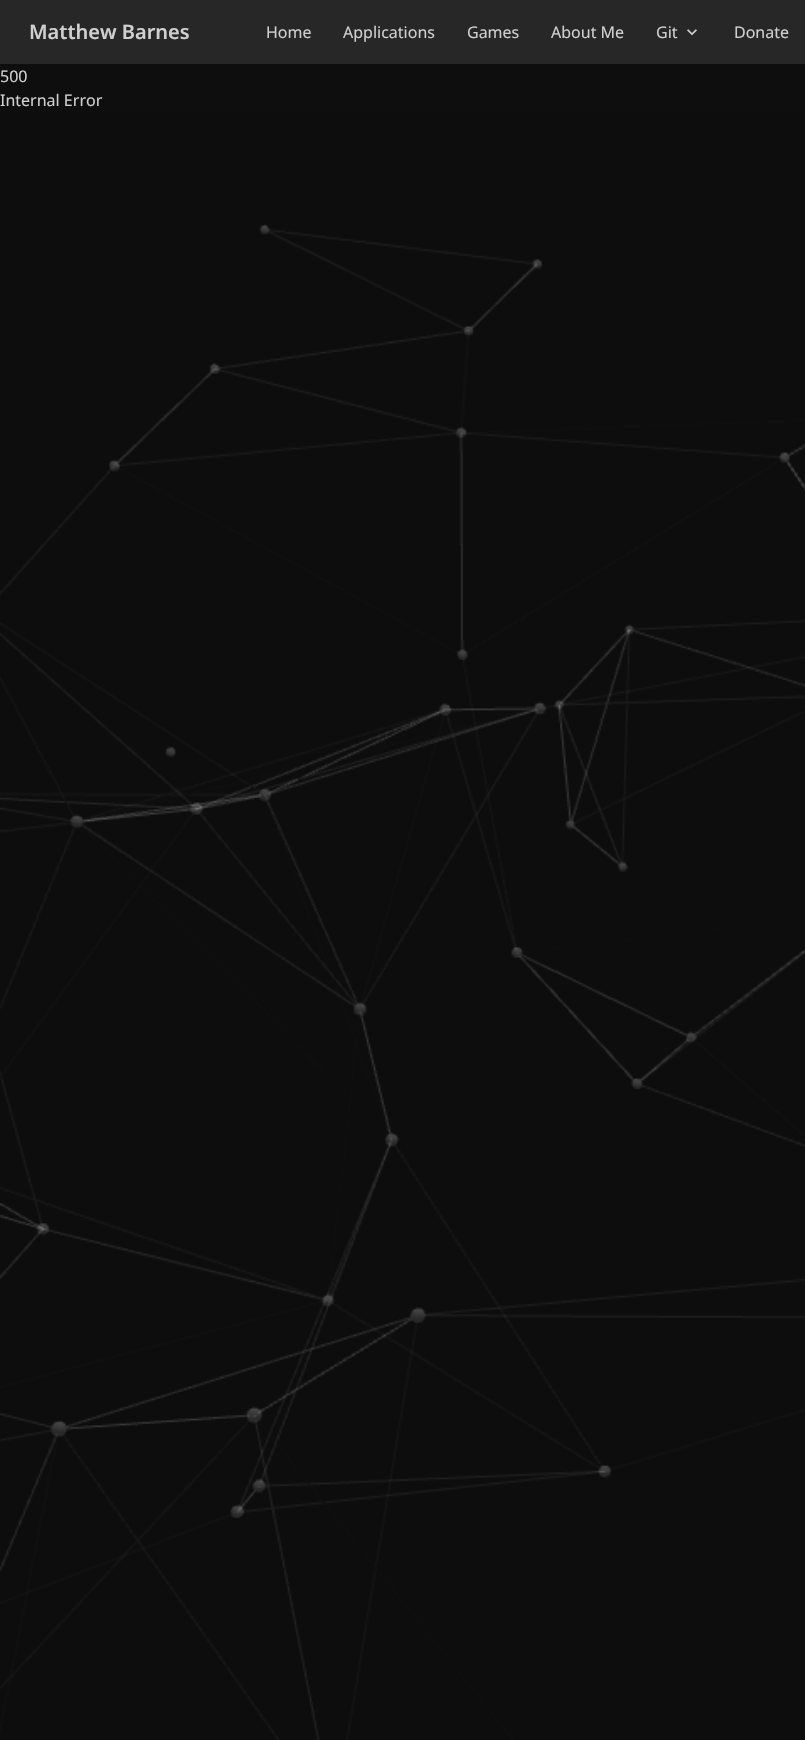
#include "include/core/SkBlurTypes.h"
#include "include/core/SkCanvas.h"
#include "include/core/SkData.h"
#include "include/core/SkFont.h"
#include "include/core/SkFontMgr.h"
#include "include/core/SkImage.h"
#include "include/core/SkMaskFilter.h"
#include "include/core/SkPaint.h"
#include "include/core/SkPathBuilder.h"
#include "include/core/SkTextBlob.h"
#include "include/effects/SkDashPathEffect.h"
#include "include/effects/SkGradientShader.h"
#include "include/utils/SkParsePath.h"

extern sk_sp<SkFontMgr> fontMgr;

void draw(SkCanvas* canvas) {
  SkPaint p;
  p.setAntiAlias(true);
  canvas->clear(SkColorSetRGB(14, 14, 14));
  canvas->drawImageRect(SkImages::DeferredFromEncodedData(SkData::MakeFromFileName("images/1.png")), SkRect::MakeLTRB(0, 112, 805, 1740), SkSamplingOptions());
  p.setColor(SkColorSetRGB(39, 39, 39));
  canvas->drawRect(SkRect::MakeLTRB(0, 0, 805, 64), p);
  canvas->drawImageRect(SkImages::DeferredFromEncodedData(SkData::MakeFromFileName("images/2.png")), SkRect::MakeLTRB(687, 29, 697, 36), SkSamplingOptions());
  SkFont font1(fontMgr->matchFamilyStyle("Noto Sans", SkFontStyle(600, SkFontStyle::kNormal_Width, SkFontStyle::kUpright_Slant)), 20);
  font1.setSubpixel(true);
  p.setColor(SkColorSetRGB(208, 208, 208));
  canvas->drawString("Matthew Barnes", 29, 39, font1, p);
  SkFont font2(fontMgr->matchFamilyStyle("Noto Sans", SkFontStyle::Normal()), 16);
  font2.setSubpixel(true);
  canvas->drawString("Home", 266, 38, font2, p);
  canvas->drawString("Applications", 343, 38, font2, p);
  canvas->drawString("Games", 467, 38, font2, p);
  canvas->drawString("About Me", 551, 38, font2, p);
  canvas->drawString("Git", 656, 38, font2, p);
  canvas->drawString("Donate", 734, 38, font2, p);
  canvas->drawString("500", 0, 82, font2, p);
  canvas->drawString("Internal Error", 0, 106, font2, p);
}
